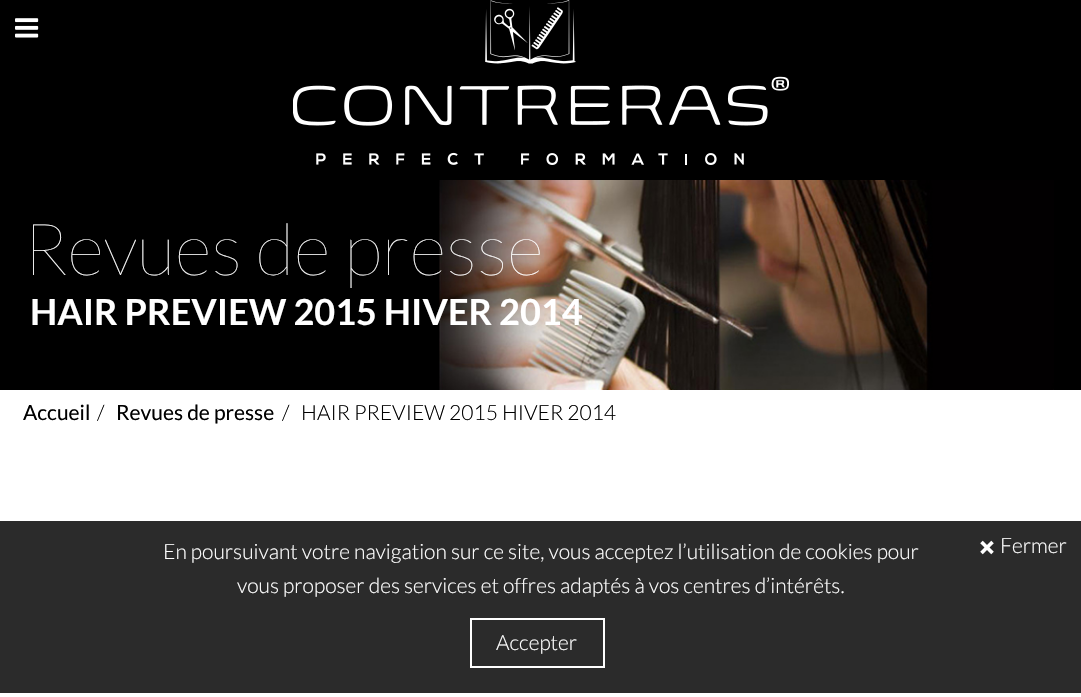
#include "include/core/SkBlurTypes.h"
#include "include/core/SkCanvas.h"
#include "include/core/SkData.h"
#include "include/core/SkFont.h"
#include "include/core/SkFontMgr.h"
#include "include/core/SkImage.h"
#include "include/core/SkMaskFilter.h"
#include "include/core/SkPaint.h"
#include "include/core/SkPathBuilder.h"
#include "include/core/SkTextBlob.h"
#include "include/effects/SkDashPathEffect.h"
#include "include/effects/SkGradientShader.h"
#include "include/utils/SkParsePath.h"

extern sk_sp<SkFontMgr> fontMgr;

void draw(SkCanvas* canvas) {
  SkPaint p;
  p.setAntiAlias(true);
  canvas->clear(SK_ColorWHITE);
  p.setColor(SK_ColorBLACK);
  canvas->drawRect(SkRect::MakeLTRB(0, 0, 1081, 390), p);
  canvas->drawImageRect(SkImages::DeferredFromEncodedData(SkData::MakeFromFileName("images/1.png")), SkRect::MakeLTRB(15, 18, 39, 38), SkSamplingOptions());
  canvas->drawImageRect(SkImages::DeferredFromEncodedData(SkData::MakeFromFileName("images/2.png")), SkRect::MakeLTRB(293, 0, 789, 165), SkSamplingOptions());
  canvas->drawImageRect(SkImages::DeferredFromEncodedData(SkData::MakeFromFileName("images/3.png")), SkRect::MakeLTRB(439, 180, 1054, 390), SkSamplingOptions());
  p.setColor(SkColorSetRGB(43, 43, 43));
  canvas->drawRect(SkRect::MakeLTRB(0, 521, 1081, 693), p);
  canvas->drawImageRect(SkImages::DeferredFromEncodedData(SkData::MakeFromFileName("images/4.png")), SkRect::MakeLTRB(980, 540, 994, 555), SkSamplingOptions());
  p.setStyle(SkPaint::kStroke_Style);
  p.setStrokeWidth(2);
  p.setColor(SK_ColorWHITE);
  canvas->drawRect(SkRect::MakeLTRB(471, 619, 604, 667), p);
  SkFont font1(fontMgr->matchFamilyStyle("Lato", SkFontStyle(100, SkFontStyle::kNormal_Width, SkFontStyle::kUpright_Slant)), 72);
  font1.setSubpixel(true);
  p.setStyle(SkPaint::kFill_Style);
  canvas->drawString("Revues de presse", 23, 275, font1, p);
  SkFont font2(fontMgr->matchFamilyStyle("Lato", SkFontStyle::Bold()), 36);
  font2.setSubpixel(true);
  canvas->drawString("HAIR PREVIEW 2015 HIVER 2014", 30, 325, font2, p);
  SkFont font3(fontMgr->matchFamilyStyle("Lato", SkFontStyle::Normal()), 21);
  font3.setSubpixel(true);
  p.setColor(SK_ColorBLACK);
  canvas->drawString("Accueil", 23, 420, font3, p);
  SkFont font4(fontMgr->matchFamilyStyle("Lato", SkFontStyle(300, SkFontStyle::kNormal_Width, SkFontStyle::kUpright_Slant)), 21);
  font4.setSubpixel(true);
  canvas->drawString("/", 97, 420, font4, p);
  canvas->drawString("Revues de presse", 116, 420, font3, p);
  canvas->drawString("/", 282, 420, font4, p);
  canvas->drawString("HAIR PREVIEW 2015 HIVER 2014", 301, 420, font4, p);
  p.setColor(SK_ColorWHITE);
  canvas->drawString("En poursuivant votre navigation sur ce site, vous acceptez l’utilisation de cookies pour", 163, 559, font4, p);
  canvas->drawString("vous proposer des services et offres adaptés à vos centres d’intérêts.", 237, 593, font4, p);
  canvas->drawString("Fermer", 1000, 553, font4, p);
  canvas->drawString("Accepter", 496, 650, font4, p);
}
